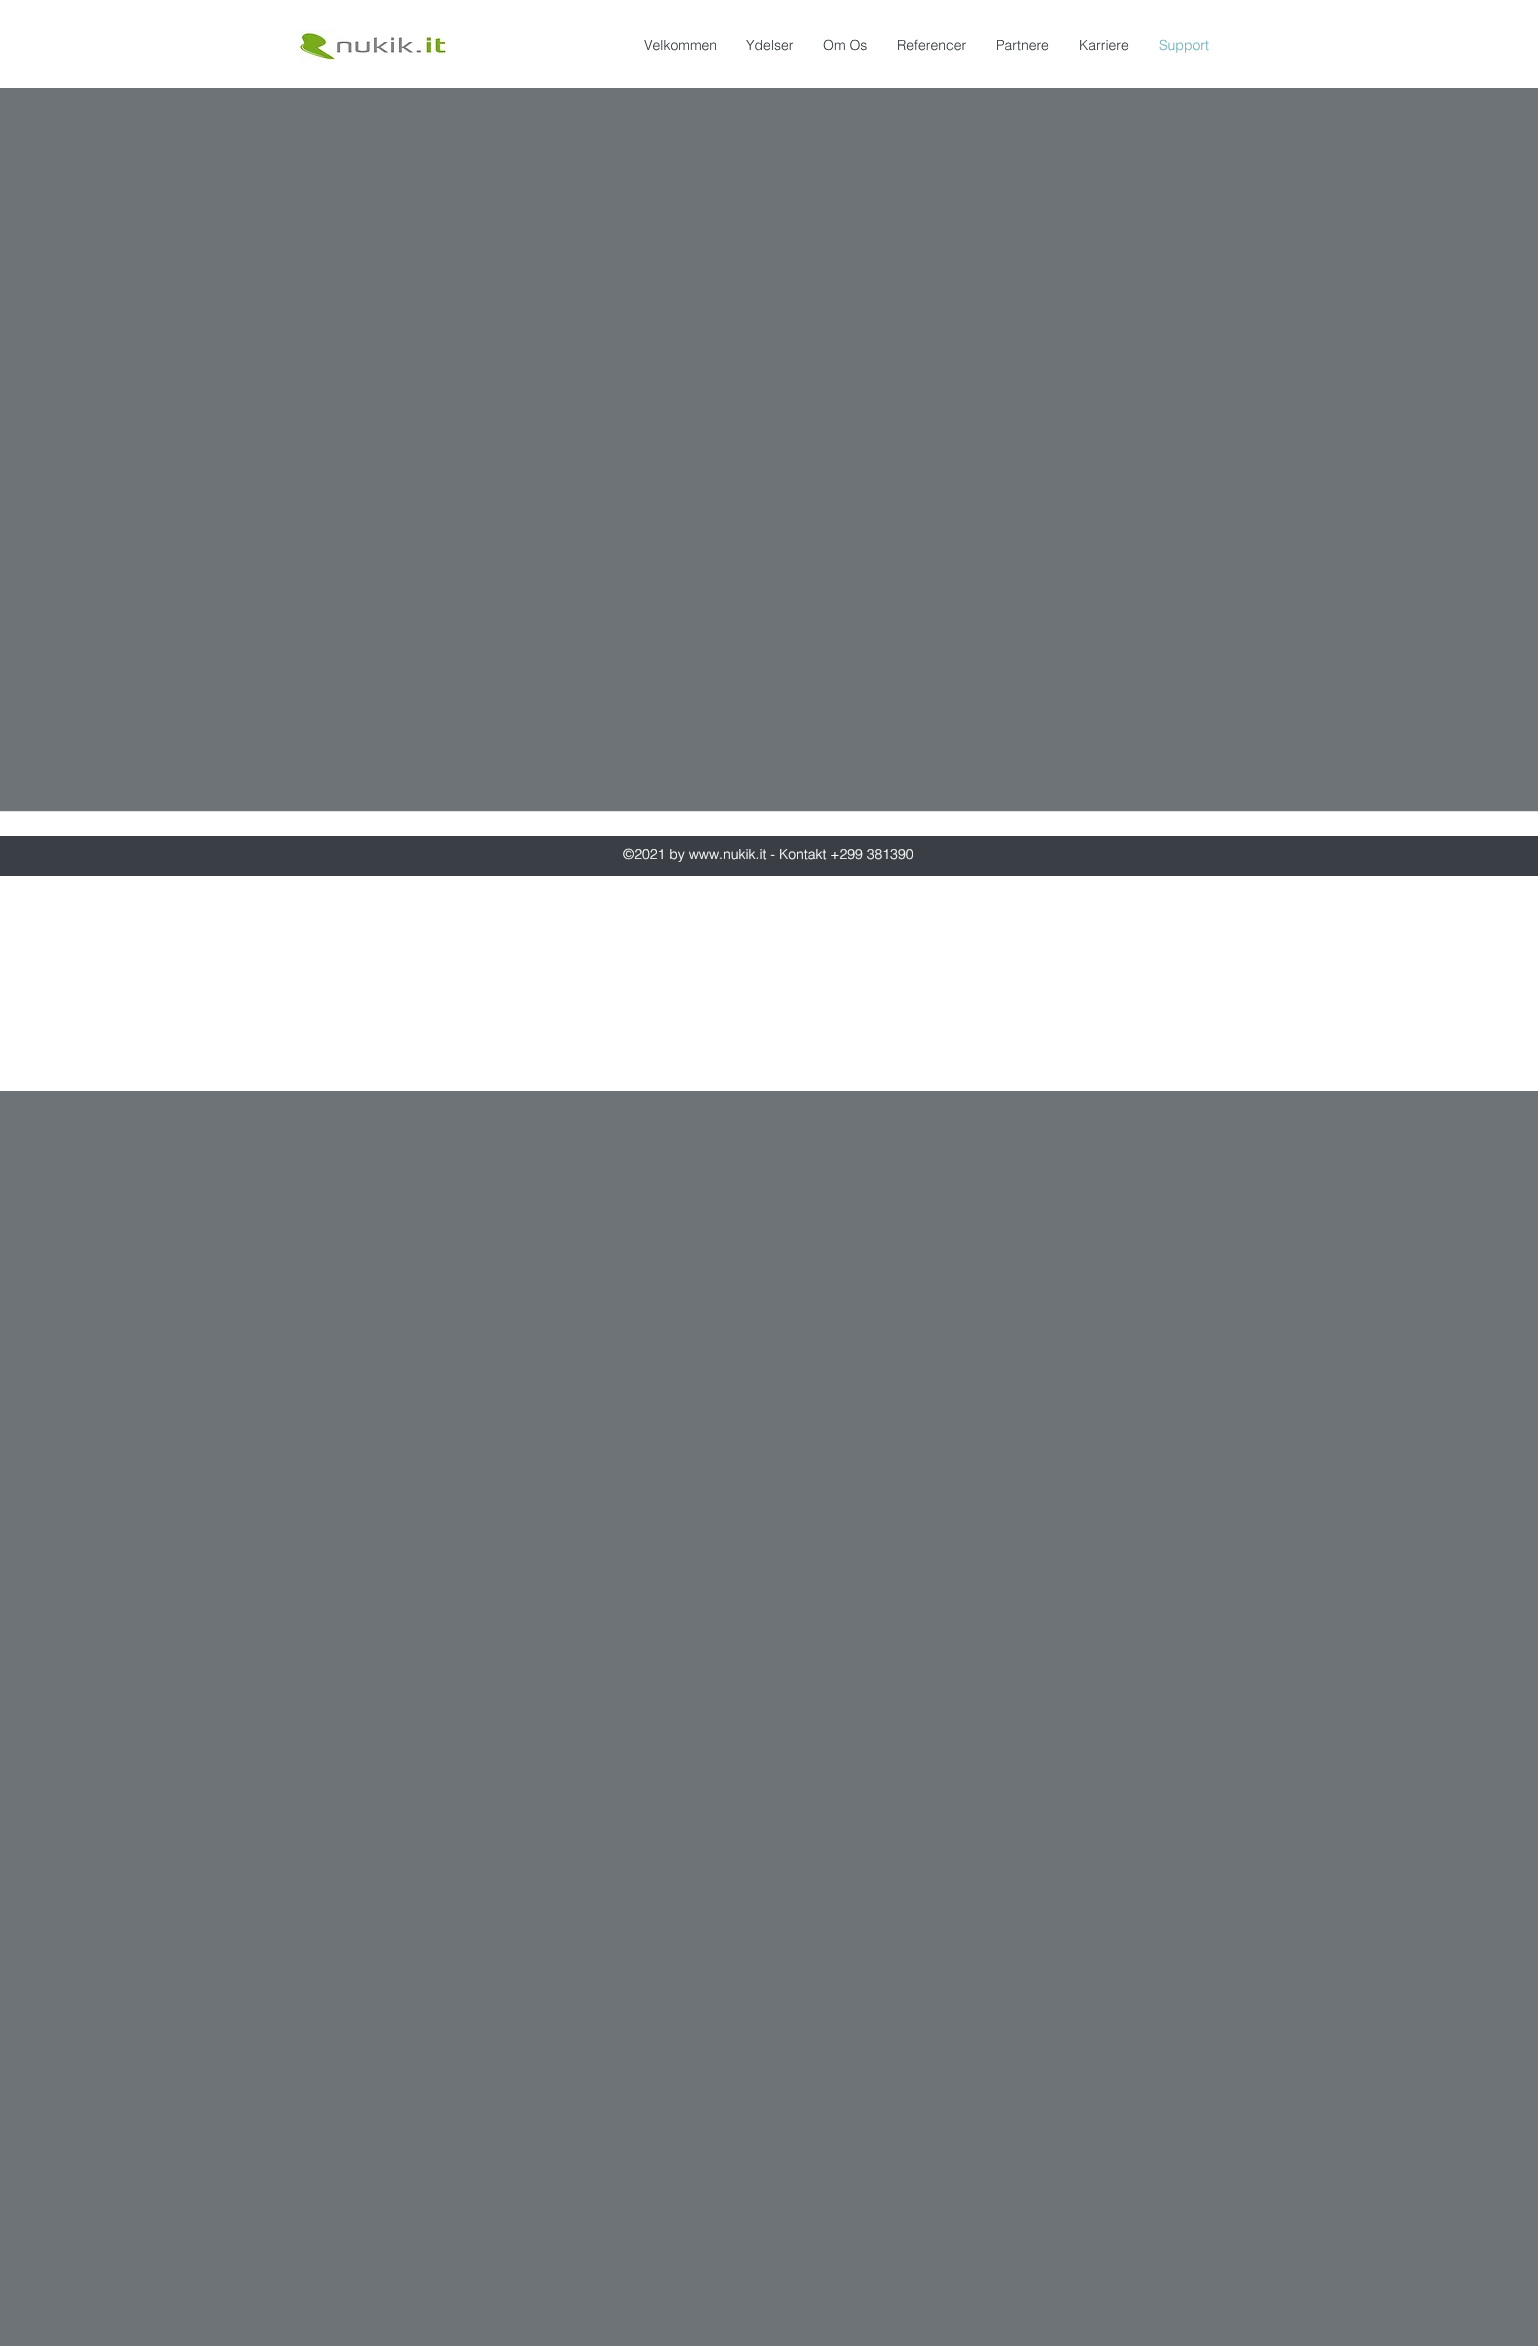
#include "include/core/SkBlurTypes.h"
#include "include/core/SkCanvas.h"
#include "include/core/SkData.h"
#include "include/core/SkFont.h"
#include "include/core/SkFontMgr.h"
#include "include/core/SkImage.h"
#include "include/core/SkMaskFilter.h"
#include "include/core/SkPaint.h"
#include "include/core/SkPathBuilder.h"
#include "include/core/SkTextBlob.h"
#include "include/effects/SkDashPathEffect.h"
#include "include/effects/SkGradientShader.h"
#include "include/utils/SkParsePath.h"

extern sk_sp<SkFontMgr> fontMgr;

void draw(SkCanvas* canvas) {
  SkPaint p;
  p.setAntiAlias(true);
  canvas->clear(SkColorSetRGB(109, 115, 119));
  p.setColor(SK_ColorWHITE);
  canvas->drawRect(SkRect::MakeLTRB(0, 0, 1538, 88), p);
  canvas->drawImageRect(SkImages::DeferredFromEncodedData(SkData::MakeFromFileName("images/1.png")), SkRect::MakeLTRB(299, 30, 449, 60), SkSamplingOptions());
  canvas->drawRect(SkRect::MakeLTRB(0, 812, 1538, 1091), p);
  p.setColor(SkColorSetRGB(225, 226, 227));
  canvas->drawRect(SkRect::MakeLTRB(0, 811, 1538, 812), p);
  p.setColor(SkColorSetRGB(57, 63, 68));
  canvas->drawRect(SkRect::MakeLTRB(0, 836, 1538, 876), p);
  SkFont font1(fontMgr->matchFamilyStyle("helvetica", SkFontStyle(300, SkFontStyle::kNormal_Width, SkFontStyle::kUpright_Slant)), 14);
  font1.setSubpixel(true);
  canvas->drawString("Velkommen", 644, 50, font1, p);
  canvas->drawString("Ydelser", 746, 50, font1, p);
  canvas->drawString("Om Os", 823, 50, font1, p);
  canvas->drawString("Referencer", 897, 50, font1, p);
  canvas->drawString("Partnere", 996, 50, font1, p);
  canvas->drawString("Karriere", 1079, 50, font1, p);
  p.setColor(SkColorSetRGB(112, 178, 185));
  canvas->drawString("Support", 1159, 50, font1, p);
  p.setColor(SK_ColorWHITE);
  canvas->drawString("©2021 by www.nukik.it - Kontakt +299 381390", 623, 859, font1, p);
}
